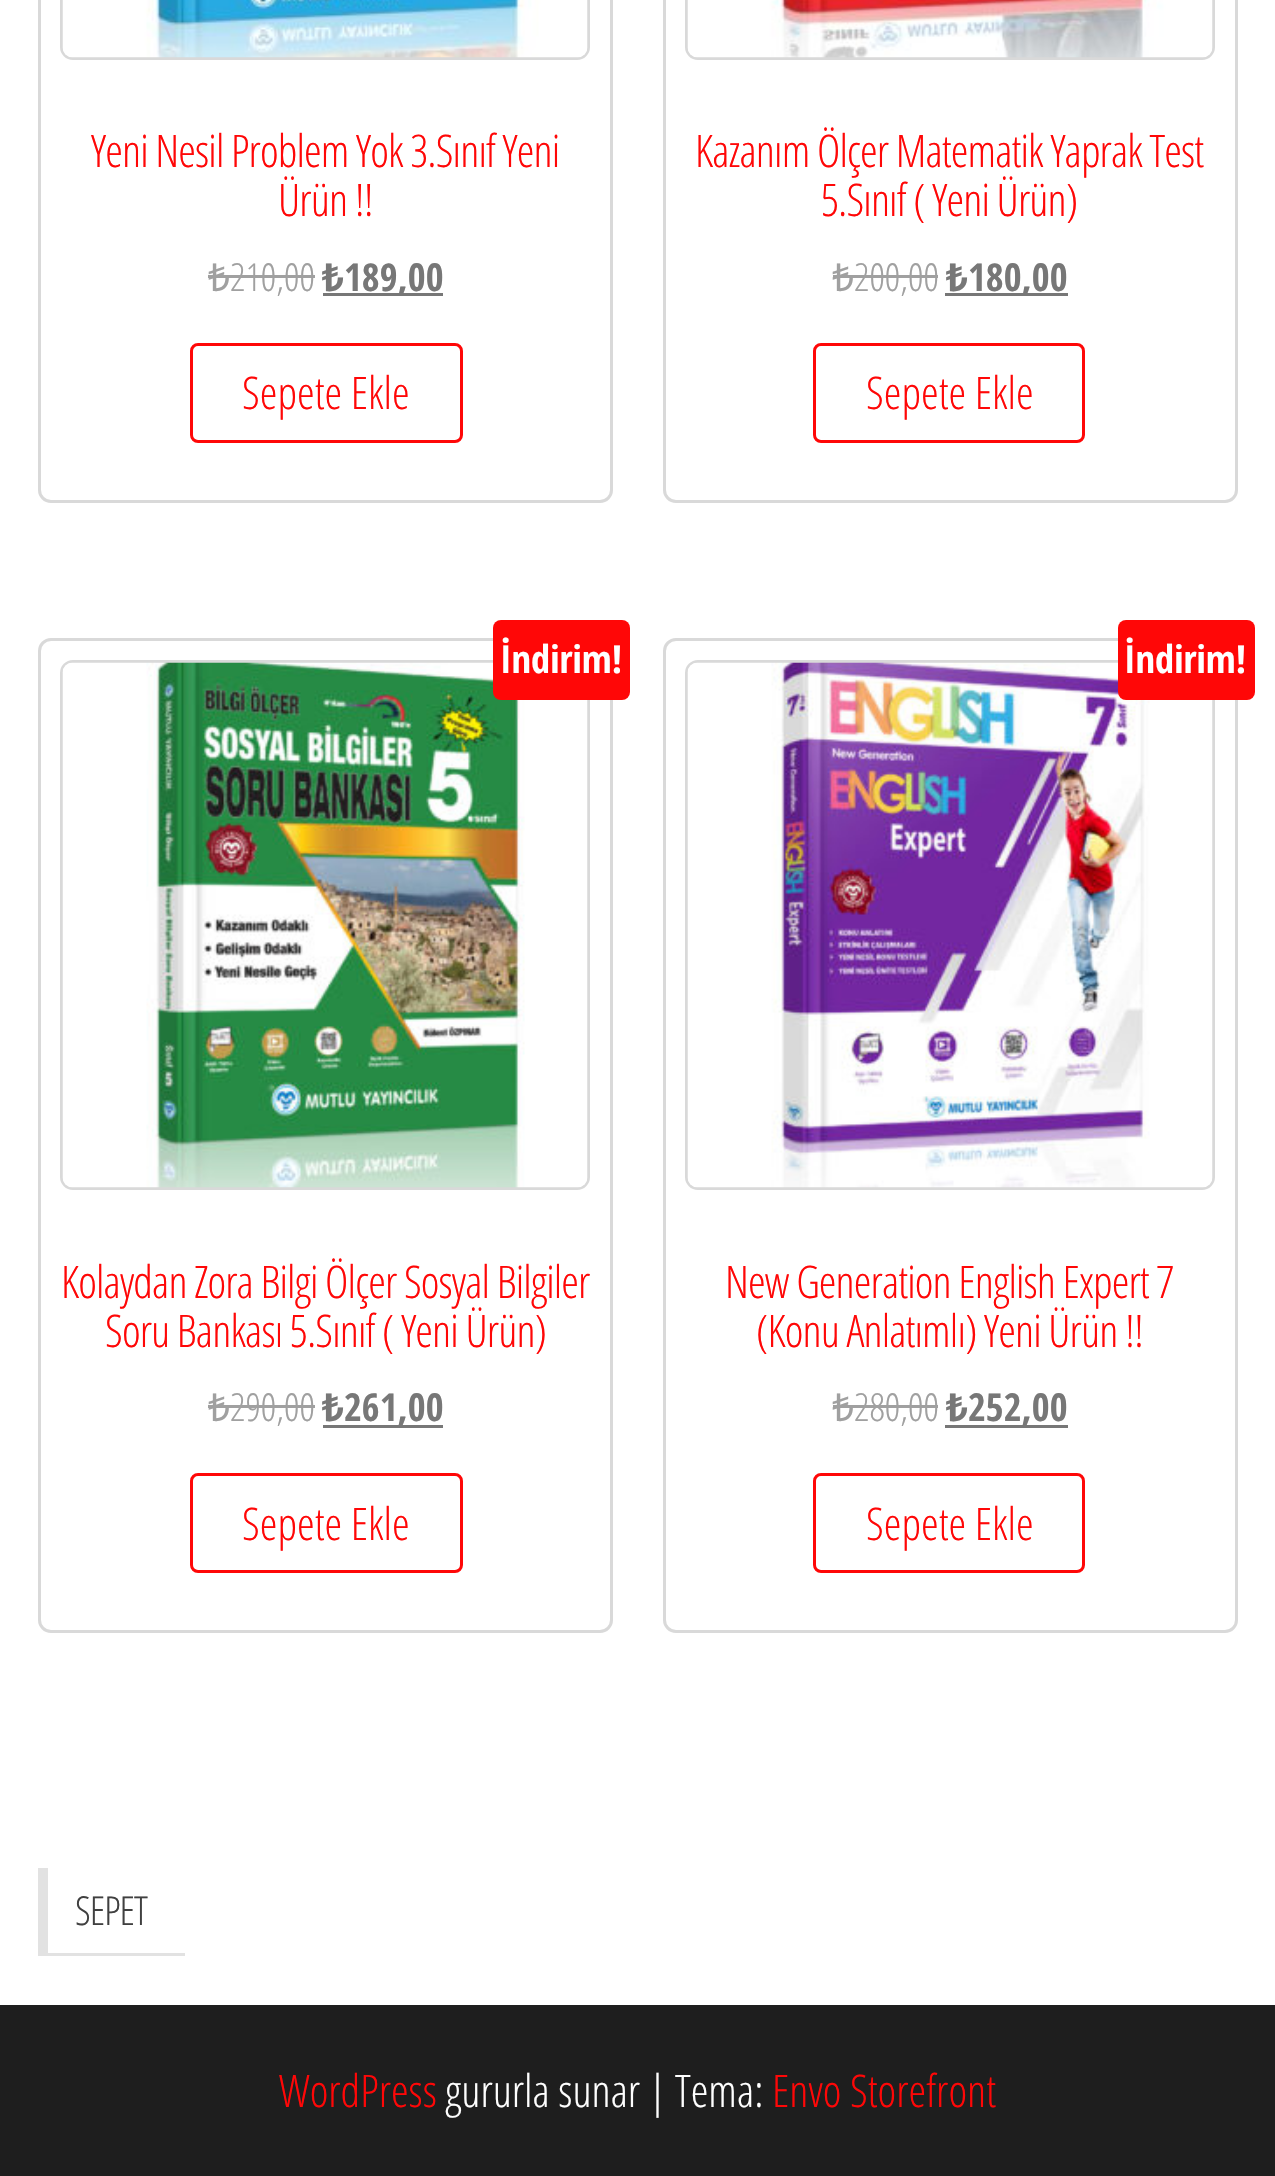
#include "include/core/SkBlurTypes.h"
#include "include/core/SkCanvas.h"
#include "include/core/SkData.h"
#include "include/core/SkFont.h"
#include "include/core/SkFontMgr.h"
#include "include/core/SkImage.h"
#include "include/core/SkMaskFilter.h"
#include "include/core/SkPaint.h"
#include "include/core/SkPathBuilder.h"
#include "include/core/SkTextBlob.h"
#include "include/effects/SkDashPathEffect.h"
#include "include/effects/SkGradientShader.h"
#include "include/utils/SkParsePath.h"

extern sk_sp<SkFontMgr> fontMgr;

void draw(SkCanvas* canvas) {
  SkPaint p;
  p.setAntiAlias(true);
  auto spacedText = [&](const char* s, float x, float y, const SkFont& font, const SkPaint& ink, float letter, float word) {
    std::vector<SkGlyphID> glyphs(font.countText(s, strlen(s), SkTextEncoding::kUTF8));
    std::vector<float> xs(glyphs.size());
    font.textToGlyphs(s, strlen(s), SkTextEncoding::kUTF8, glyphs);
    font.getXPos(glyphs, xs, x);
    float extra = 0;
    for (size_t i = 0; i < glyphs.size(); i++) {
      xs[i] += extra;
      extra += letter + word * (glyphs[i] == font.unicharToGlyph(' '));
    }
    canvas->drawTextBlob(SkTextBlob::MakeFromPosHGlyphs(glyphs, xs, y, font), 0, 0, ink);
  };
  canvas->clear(SK_ColorWHITE);
  p.setStyle(SkPaint::kStroke_Style);
  p.setStrokeWidth(3);
  p.setColor(SkColorSetRGB(217, 217, 217));
  canvas->drawRoundRect(SkRect::MakeLTRB(39.5f, -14.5f, 611.5f, 501.5f), 11.5f, 11.5f, p);
  canvas->drawRoundRect(SkRect::MakeLTRB(61.5f, -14.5f, 588.5f, 58.5f), 11.5f, 11.5f, p);
  canvas->drawImageRect(SkImages::DeferredFromEncodedData(SkData::MakeFromFileName("images/1.png")), SkRect::MakeLTRB(62, 0, 588, 58), SkSamplingOptions());
  p.setStyle(SkPaint::kFill_Style);
  p.setColor(SkColorSetRGB(160, 160, 160));
  canvas->drawRect(SkRect::MakeLTRB(208, 275, 230, 278), p);
  canvas->drawRect(SkRect::MakeLTRB(230, 275, 315, 278), p);
  p.setColor(SkColorSetRGB(119, 119, 119));
  canvas->drawRect(SkRect::MakeLTRB(323, 293, 443, 296), p);
  p.setStyle(SkPaint::kStroke_Style);
  p.setColor(SkColorSetRGB(255, 7, 7));
  canvas->drawRoundRect(SkRect::MakeLTRB(191.5f, 344.5f, 461.5f, 441.5f), 6.5f, 6.5f, p);
  p.setColor(SkColorSetRGB(217, 217, 217));
  canvas->drawRoundRect(SkRect::MakeLTRB(664.5f, -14.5f, 1236.5f, 501.5f), 11.5f, 11.5f, p);
  canvas->drawRoundRect(SkRect::MakeLTRB(686.5f, -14.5f, 1213.5f, 58.5f), 11.5f, 11.5f, p);
  canvas->drawImageRect(SkImages::DeferredFromEncodedData(SkData::MakeFromFileName("images/2.png")), SkRect::MakeLTRB(687, 0, 1213, 58), SkSamplingOptions());
  p.setStyle(SkPaint::kFill_Style);
  p.setColor(SkColorSetRGB(160, 160, 160));
  canvas->drawRect(SkRect::MakeLTRB(833, 275, 853, 278), p);
  canvas->drawRect(SkRect::MakeLTRB(853, 275, 938, 278), p);
  p.setColor(SkColorSetRGB(119, 119, 119));
  canvas->drawRect(SkRect::MakeLTRB(945, 293, 1068, 296), p);
  p.setStyle(SkPaint::kStroke_Style);
  p.setColor(SkColorSetRGB(255, 7, 7));
  canvas->drawRoundRect(SkRect::MakeLTRB(814.5f, 344.5f, 1083.5f, 441.5f), 6.5f, 6.5f, p);
  p.setColor(SkColorSetRGB(217, 217, 217));
  canvas->drawRoundRect(SkRect::MakeLTRB(39.5f, 639.5f, 611.5f, 1631.5f), 11.5f, 11.5f, p);
  canvas->drawRoundRect(SkRect::MakeLTRB(61.5f, 661.5f, 588.5f, 1188.5f), 11.5f, 11.5f, p);
  canvas->drawImageRect(SkImages::DeferredFromEncodedData(SkData::MakeFromFileName("images/3.png")), SkRect::MakeLTRB(62, 662, 588, 1188), SkSamplingOptions());
  p.setStyle(SkPaint::kFill_Style);
  p.setColor(SkColorSetRGB(255, 7, 7));
  canvas->drawRoundRect(SkRect::MakeLTRB(493, 620, 630, 700), 8, 8, p);
  p.setColor(SkColorSetRGB(160, 160, 160));
  canvas->drawRect(SkRect::MakeLTRB(208, 1405, 230, 1408), p);
  canvas->drawRect(SkRect::MakeLTRB(230, 1405, 315, 1408), p);
  p.setColor(SkColorSetRGB(119, 119, 119));
  canvas->drawRect(SkRect::MakeLTRB(323, 1425, 443, 1428), p);
  p.setStyle(SkPaint::kStroke_Style);
  p.setColor(SkColorSetRGB(255, 7, 7));
  canvas->drawRoundRect(SkRect::MakeLTRB(191.5f, 1474.5f, 461.5f, 1571.5f), 6.5f, 6.5f, p);
  p.setColor(SkColorSetRGB(217, 217, 217));
  canvas->drawRoundRect(SkRect::MakeLTRB(664.5f, 639.5f, 1236.5f, 1631.5f), 11.5f, 11.5f, p);
  canvas->drawRoundRect(SkRect::MakeLTRB(686.5f, 661.5f, 1213.5f, 1188.5f), 11.5f, 11.5f, p);
  canvas->drawImageRect(SkImages::DeferredFromEncodedData(SkData::MakeFromFileName("images/4.png")), SkRect::MakeLTRB(687, 662, 1213, 1188), SkSamplingOptions());
  p.setStyle(SkPaint::kFill_Style);
  p.setColor(SkColorSetRGB(255, 7, 7));
  canvas->drawRoundRect(SkRect::MakeLTRB(1118, 620, 1255, 700), 8, 8, p);
  p.setColor(SkColorSetRGB(160, 160, 160));
  canvas->drawRect(SkRect::MakeLTRB(833, 1405, 853, 1408), p);
  canvas->drawRect(SkRect::MakeLTRB(853, 1405, 938, 1408), p);
  p.setColor(SkColorSetRGB(119, 119, 119));
  canvas->drawRect(SkRect::MakeLTRB(945, 1425, 1068, 1428), p);
  p.setStyle(SkPaint::kStroke_Style);
  p.setColor(SkColorSetRGB(255, 7, 7));
  canvas->drawRoundRect(SkRect::MakeLTRB(814.5f, 1474.5f, 1083.5f, 1571.5f), 6.5f, 6.5f, p);
  p.setStyle(SkPaint::kFill_Style);
  p.setColor(SkColorSetRGB(226, 226, 226));
  canvas->drawRect(SkRect::MakeLTRB(38, 1953, 185, 1956), p);
  canvas->drawRect(SkRect::MakeLTRB(38, 1868, 48, 1953), p);
  p.setColor(SkColorSetRGB(30, 30, 30));
  canvas->drawRect(SkRect::MakeLTRB(0, 2005, 1275, 2176), p);
  SkFont font1(fontMgr->matchFamilyStyle("Open Sans Condensed", SkFontStyle(300, SkFontStyle::kNormal_Width, SkFontStyle::kUpright_Slant)), 45);
  font1.setSubpixel(true);
  p.setColor(SkColorSetRGB(255, 7, 7));
  spacedText("Yeni Nesil Problem Yok 3.Sınıf Yeni", 91, 167, font1, p, -0.9f, 0);
  spacedText("Ürün !!", 278, 216, font1, p, -0.9f, 0);
  SkFont font2(fontMgr->matchFamilyStyle("Noto Sans", SkFontStyle::Normal()), 38.5f);
  font2.setSubpixel(true);
  p.setColor(SkColorSetRGB(160, 160, 160));
  canvas->drawString("₺", 208, 291, font2, p);
  SkFont font3(fontMgr->matchFamilyStyle("Open Sans Condensed", SkFontStyle(300, SkFontStyle::kNormal_Width, SkFontStyle::kUpright_Slant)), 38.5f);
  font3.setSubpixel(true);
  canvas->drawString("210,00", 230, 291, font3, p);
  SkFont font4(fontMgr->matchFamilyStyle("Noto Sans", SkFontStyle::Bold()), 38.5f);
  font4.setSubpixel(true);
  p.setColor(SkColorSetRGB(119, 119, 119));
  canvas->drawString("₺", 322, 291, font4, p);
  SkFont font5(fontMgr->matchFamilyStyle("Open Sans Condensed", SkFontStyle::Bold()), 38.5f);
  font5.setSubpixel(true);
  canvas->drawString("189,00", 344, 291, font5, p);
  p.setColor(SkColorSetRGB(255, 7, 7));
  canvas->drawString("Sepete Ekle", 242, 409, font1, p);
  spacedText("Kazanım Ölçer Matematik Yaprak Test", 695, 167, font1, p, -0.9f, 0);
  spacedText("5.Sınıf ( Yeni Ürün)", 821, 216, font1, p, -0.9f, 0);
  p.setColor(SkColorSetRGB(160, 160, 160));
  canvas->drawString("₺", 832, 291, font2, p);
  canvas->drawString("200,00", 854, 291, font3, p);
  p.setColor(SkColorSetRGB(119, 119, 119));
  canvas->drawString("₺", 946, 291, font4, p);
  canvas->drawString("180,00", 968, 291, font5, p);
  p.setColor(SkColorSetRGB(255, 7, 7));
  canvas->drawString("Sepete Ekle", 866, 409, font1, p);
  p.setColor(SK_ColorWHITE);
  canvas->drawString("İndirim!", 500, 673, font5, p);
  p.setColor(SkColorSetRGB(255, 7, 7));
  spacedText("Kolaydan Zora Bilgi Ölçer Sosyal Bilgiler", 61, 1298, font1, p, -0.9f, 0);
  spacedText("Soru Bankası 5.Sınıf ( Yeni Ürün)", 105, 1347, font1, p, -0.9f, 0);
  p.setColor(SkColorSetRGB(160, 160, 160));
  canvas->drawString("₺", 208, 1421, font2, p);
  canvas->drawString("290,00", 230, 1421, font3, p);
  p.setColor(SkColorSetRGB(119, 119, 119));
  canvas->drawString("₺", 322, 1421, font4, p);
  canvas->drawString("261,00", 344, 1421, font5, p);
  p.setColor(SkColorSetRGB(255, 7, 7));
  canvas->drawString("Sepete Ekle", 242, 1540, font1, p);
  p.setColor(SK_ColorWHITE);
  canvas->drawString("İndirim!", 1124, 673, font5, p);
  p.setColor(SkColorSetRGB(255, 7, 7));
  spacedText("New Generation English Expert 7", 725, 1298, font1, p, -0.9f, 0);
  spacedText("(Konu Anlatımlı) Yeni Ürün !!", 756, 1347, font1, p, -0.9f, 0);
  p.setColor(SkColorSetRGB(160, 160, 160));
  canvas->drawString("₺", 832, 1421, font2, p);
  canvas->drawString("280,00", 854, 1421, font3, p);
  p.setColor(SkColorSetRGB(119, 119, 119));
  canvas->drawString("₺", 946, 1421, font4, p);
  canvas->drawString("252,00", 968, 1421, font5, p);
  p.setColor(SkColorSetRGB(255, 7, 7));
  canvas->drawString("Sepete Ekle", 866, 1540, font1, p);
  SkFont font6(fontMgr->matchFamilyStyle("Open Sans Condensed", SkFontStyle(300, SkFontStyle::kNormal_Width, SkFontStyle::kUpright_Slant)), 40);
  font6.setSubpixel(true);
  p.setColor(SkColorSetRGB(64, 64, 64));
  spacedText("SEPET", 75, 1925, font6, p, -1, 0);
  p.setColor(SkColorSetRGB(255, 7, 7));
  canvas->drawString("WordPress", 279, 2107, font1, p);
  p.setColor(SK_ColorWHITE);
  canvas->drawString("gururla sunar | Tema:", 445, 2107, font1, p);
  p.setColor(SkColorSetRGB(255, 7, 7));
  canvas->drawString("Envo Storefront", 772, 2107, font1, p);
}
